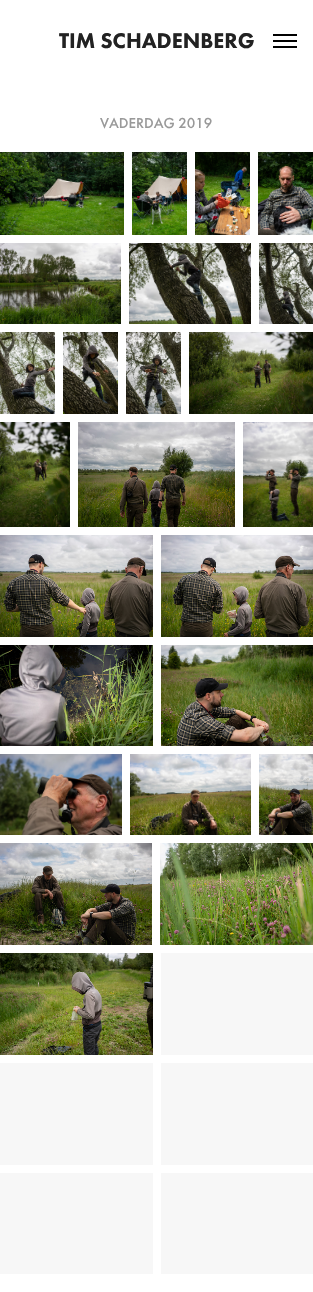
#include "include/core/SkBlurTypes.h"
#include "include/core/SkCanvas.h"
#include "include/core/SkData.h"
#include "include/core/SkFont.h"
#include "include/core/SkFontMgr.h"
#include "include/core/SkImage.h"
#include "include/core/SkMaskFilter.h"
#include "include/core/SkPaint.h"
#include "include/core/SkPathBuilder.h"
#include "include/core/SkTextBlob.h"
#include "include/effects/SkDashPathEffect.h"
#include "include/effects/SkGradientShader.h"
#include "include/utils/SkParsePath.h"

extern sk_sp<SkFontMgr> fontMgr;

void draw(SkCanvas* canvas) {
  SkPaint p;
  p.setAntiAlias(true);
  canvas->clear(SK_ColorWHITE);
  p.setColor(SK_ColorBLACK);
  canvas->drawRect(SkRect::MakeLTRB(273, 34, 297, 36), p);
  canvas->drawRect(SkRect::MakeLTRB(273, 40, 297, 42), p);
  canvas->drawRect(SkRect::MakeLTRB(273, 46, 297, 48), p);
  canvas->drawImageRect(SkImages::DeferredFromEncodedData(SkData::MakeFromFileName("images/1.png")), SkRect::MakeLTRB(0, 152, 124, 235), SkSamplingOptions());
  canvas->drawImageRect(SkImages::DeferredFromEncodedData(SkData::MakeFromFileName("images/2.png")), SkRect::MakeLTRB(132, 152, 187, 235), SkSamplingOptions());
  canvas->drawImageRect(SkImages::DeferredFromEncodedData(SkData::MakeFromFileName("images/3.png")), SkRect::MakeLTRB(195, 152, 250, 235), SkSamplingOptions());
  canvas->drawImageRect(SkImages::DeferredFromEncodedData(SkData::MakeFromFileName("images/4.png")), SkRect::MakeLTRB(258, 152, 313, 235), SkSamplingOptions());
  canvas->drawImageRect(SkImages::DeferredFromEncodedData(SkData::MakeFromFileName("images/5.png")), SkRect::MakeLTRB(0, 243, 121, 324), SkSamplingOptions());
  canvas->drawImageRect(SkImages::DeferredFromEncodedData(SkData::MakeFromFileName("images/6.png")), SkRect::MakeLTRB(129, 243, 251, 324), SkSamplingOptions());
  canvas->drawImageRect(SkImages::DeferredFromEncodedData(SkData::MakeFromFileName("images/7.png")), SkRect::MakeLTRB(259, 243, 313, 324), SkSamplingOptions());
  canvas->drawImageRect(SkImages::DeferredFromEncodedData(SkData::MakeFromFileName("images/8.png")), SkRect::MakeLTRB(0, 332, 55, 414), SkSamplingOptions());
  canvas->drawImageRect(SkImages::DeferredFromEncodedData(SkData::MakeFromFileName("images/9.png")), SkRect::MakeLTRB(63, 332, 118, 414), SkSamplingOptions());
  canvas->drawImageRect(SkImages::DeferredFromEncodedData(SkData::MakeFromFileName("images/10.png")), SkRect::MakeLTRB(126, 332, 181, 414), SkSamplingOptions());
  canvas->drawImageRect(SkImages::DeferredFromEncodedData(SkData::MakeFromFileName("images/11.png")), SkRect::MakeLTRB(189, 332, 313, 414), SkSamplingOptions());
  canvas->drawImageRect(SkImages::DeferredFromEncodedData(SkData::MakeFromFileName("images/12.png")), SkRect::MakeLTRB(0, 422, 70, 527), SkSamplingOptions());
  canvas->drawImageRect(SkImages::DeferredFromEncodedData(SkData::MakeFromFileName("images/13.png")), SkRect::MakeLTRB(78, 422, 235, 527), SkSamplingOptions());
  canvas->drawImageRect(SkImages::DeferredFromEncodedData(SkData::MakeFromFileName("images/14.png")), SkRect::MakeLTRB(243, 422, 313, 527), SkSamplingOptions());
  canvas->drawImageRect(SkImages::DeferredFromEncodedData(SkData::MakeFromFileName("images/15.png")), SkRect::MakeLTRB(0, 535, 153, 637), SkSamplingOptions());
  canvas->drawImageRect(SkImages::DeferredFromEncodedData(SkData::MakeFromFileName("images/16.png")), SkRect::MakeLTRB(161, 535, 313, 637), SkSamplingOptions());
  canvas->drawImageRect(SkImages::DeferredFromEncodedData(SkData::MakeFromFileName("images/17.png")), SkRect::MakeLTRB(0, 645, 153, 746), SkSamplingOptions());
  canvas->drawImageRect(SkImages::DeferredFromEncodedData(SkData::MakeFromFileName("images/18.png")), SkRect::MakeLTRB(161, 645, 313, 746), SkSamplingOptions());
  canvas->drawImageRect(SkImages::DeferredFromEncodedData(SkData::MakeFromFileName("images/19.png")), SkRect::MakeLTRB(0, 754, 122, 835), SkSamplingOptions());
  canvas->drawImageRect(SkImages::DeferredFromEncodedData(SkData::MakeFromFileName("images/20.png")), SkRect::MakeLTRB(130, 754, 251, 835), SkSamplingOptions());
  canvas->drawImageRect(SkImages::DeferredFromEncodedData(SkData::MakeFromFileName("images/21.png")), SkRect::MakeLTRB(259, 754, 313, 835), SkSamplingOptions());
  canvas->drawImageRect(SkImages::DeferredFromEncodedData(SkData::MakeFromFileName("images/22.png")), SkRect::MakeLTRB(0, 843, 152, 945), SkSamplingOptions());
  canvas->drawImageRect(SkImages::DeferredFromEncodedData(SkData::MakeFromFileName("images/23.png")), SkRect::MakeLTRB(160, 843, 313, 945), SkSamplingOptions());
  canvas->drawImageRect(SkImages::DeferredFromEncodedData(SkData::MakeFromFileName("images/24.png")), SkRect::MakeLTRB(0, 953, 153, 1055), SkSamplingOptions());
  p.setColor(SkColorSetRGB(247, 247, 247));
  canvas->drawRect(SkRect::MakeLTRB(161, 953, 313, 1055), p);
  canvas->drawRect(SkRect::MakeLTRB(0, 1063, 153, 1165), p);
  canvas->drawRect(SkRect::MakeLTRB(161, 1063, 313, 1165), p);
  canvas->drawRect(SkRect::MakeLTRB(0, 1173, 153, 1274), p);
  canvas->drawRect(SkRect::MakeLTRB(161, 1173, 313, 1274), p);
  SkFont font1(fontMgr->matchFamilyStyle("Futura PT", SkFontStyle(900, SkFontStyle::kNormal_Width, SkFontStyle::kUpright_Slant)), 22);
  font1.setSubpixel(true);
  p.setColor(SkColorSetRGB(34, 34, 34));
  canvas->drawString("TIM SCHADENBERG", 59, 48, font1, p);
  SkFont font2(fontMgr->matchFamilyStyle("Futura PT", SkFontStyle(500, SkFontStyle::kNormal_Width, SkFontStyle::kUpright_Slant)), 15);
  font2.setSubpixel(true);
  p.setColor(SkColorSetRGB(153, 153, 153));
  canvas->drawString("VADERDAG 2019", 100, 128, font2, p);
}
